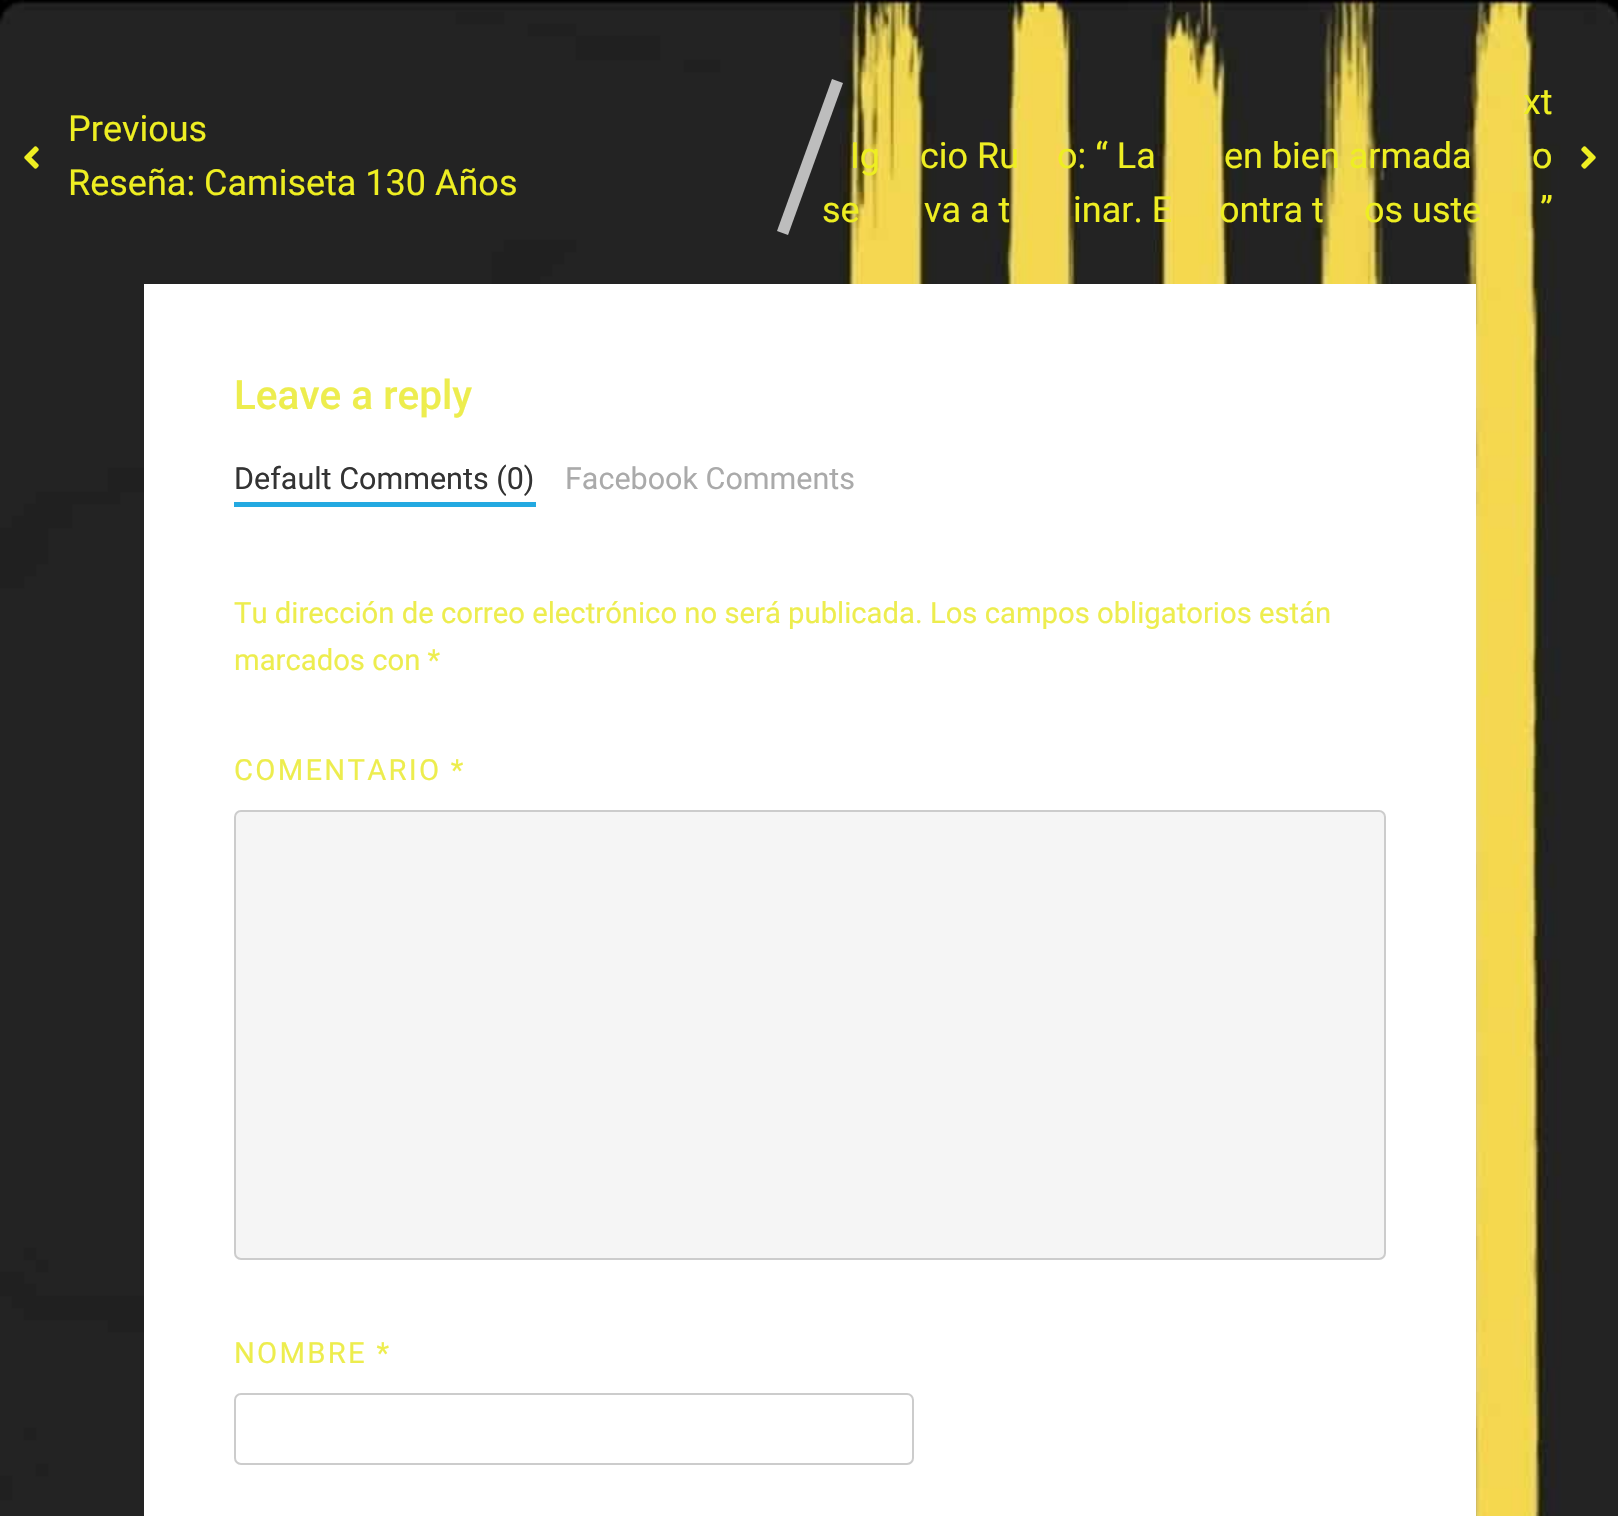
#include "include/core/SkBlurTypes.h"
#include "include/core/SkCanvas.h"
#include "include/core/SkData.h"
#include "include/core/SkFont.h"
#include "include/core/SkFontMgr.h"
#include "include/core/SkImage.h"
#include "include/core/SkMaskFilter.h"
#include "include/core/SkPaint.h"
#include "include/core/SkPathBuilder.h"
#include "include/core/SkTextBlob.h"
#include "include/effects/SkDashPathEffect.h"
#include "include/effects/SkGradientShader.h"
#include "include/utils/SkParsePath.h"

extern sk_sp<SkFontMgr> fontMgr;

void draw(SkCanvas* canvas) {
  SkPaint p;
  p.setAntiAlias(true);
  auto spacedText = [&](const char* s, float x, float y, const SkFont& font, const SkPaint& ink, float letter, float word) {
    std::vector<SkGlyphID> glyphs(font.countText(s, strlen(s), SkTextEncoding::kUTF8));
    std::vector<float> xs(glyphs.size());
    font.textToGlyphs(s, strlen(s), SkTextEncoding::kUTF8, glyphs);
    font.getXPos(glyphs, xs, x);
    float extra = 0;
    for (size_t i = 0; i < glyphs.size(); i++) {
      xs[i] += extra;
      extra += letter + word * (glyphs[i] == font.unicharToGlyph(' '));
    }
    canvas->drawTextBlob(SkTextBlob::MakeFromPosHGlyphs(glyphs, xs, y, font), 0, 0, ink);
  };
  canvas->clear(SK_ColorWHITE);
  canvas->drawImageRect(SkImages::DeferredFromEncodedData(SkData::MakeFromFileName("images/1.png")), SkRect::MakeLTRB(0, 0, 1618, 1516), SkSamplingOptions());
  canvas->drawImageRect(SkImages::DeferredFromEncodedData(SkData::MakeFromFileName("images/2.png")), SkRect::MakeLTRB(24, 146, 39, 169), SkSamplingOptions());
  canvas->drawImageRect(SkImages::DeferredFromEncodedData(SkData::MakeFromFileName("images/3.png")), SkRect::MakeLTRB(1581, 146, 1596, 169), SkSamplingOptions());
  p.setColor(SK_ColorWHITE);
  canvas->drawRect(SkRect::MakeLTRB(144, 284, 1476, 1516), p);
  p.setColor(SkColorSetRGB(35, 169, 225));
  canvas->drawRect(SkRect::MakeLTRB(234, 502, 536, 507), p);
  p.setColor(SkColorSetRGB(245, 245, 245));
  canvas->drawRoundRect(SkRect::MakeLTRB(235, 811, 1385, 1259), 6, 6, p);
  p.setStyle(SkPaint::kStroke_Style);
  p.setStrokeWidth(2);
  p.setColor(SkColorSetRGB(204, 204, 204));
  canvas->drawRoundRect(SkRect::MakeLTRB(235, 811, 1385, 1259), 6, 6, p);
  canvas->drawRoundRect(SkRect::MakeLTRB(235, 1394, 913, 1464), 6, 6, p);
  SkFont font1(fontMgr->matchFamilyStyle("Roboto", SkFontStyle::Normal()), 36);
  font1.setSubpixel(true);
  p.setStyle(SkPaint::kFill_Style);
  p.setColor(SkColorSetRGB(238, 238, 34));
  canvas->drawString("Previous", 68, 141, font1, p);
  canvas->drawString("Reseña: Camiseta 130 Años", 68, 195, font1, p);
  canvas->drawString("xt", 1523, 114, font1, p);
  canvas->drawString("Ig", 850, 168, font1, p);
  canvas->drawString("cio Ru", 920, 168, font1, p);
  canvas->drawString("o: “ La", 1057, 168, font1, p);
  canvas->drawString("en bien armada", 1224, 168, font1, p);
  canvas->drawString("o", 1532, 168, font1, p);
  canvas->drawString("se", 822, 222, font1, p);
  p.setColor(SkColorSetRGB(189, 189, 189));
  canvas->drawPath(SkPathBuilder().moveTo(832, 79).lineTo(843, 83).lineTo(788, 235).lineTo(777, 231).close().detach(), p);
  p.setColor(SkColorSetRGB(238, 238, 34));
  canvas->drawString("va a t", 924, 222, font1, p);
  canvas->drawString("inar. E", 1073, 222, font1, p);
  canvas->drawString("ontra t", 1219, 222, font1, p);
  canvas->drawString("os uste", 1364, 222, font1, p);
  canvas->drawString("”", 1540, 222, font1, p);
  SkFont font2(fontMgr->matchFamilyStyle("Roboto", SkFontStyle(500, SkFontStyle::kNormal_Width, SkFontStyle::kUpright_Slant)), 40.5f);
  font2.setSubpixel(true);
  p.setColor(SkColorSetRGB(237, 237, 78));
  canvas->drawString("Leave a reply", 234, 409, font2, p);
  SkFont font3(fontMgr->matchFamilyStyle("Roboto", SkFontStyle::Normal()), 30.5f);
  font3.setSubpixel(true);
  p.setColor(SkColorSetRGB(51, 51, 51));
  canvas->drawString("Default Comments (0)", 234, 489, font3, p);
  p.setColor(SkColorSetRGB(170, 170, 170));
  canvas->drawString("Facebook Comments", 565, 489, font3, p);
  SkFont font4(fontMgr->matchFamilyStyle("Roboto", SkFontStyle::Normal()), 29.25f);
  font4.setSubpixel(true);
  p.setColor(SkColorSetRGB(237, 237, 78));
  canvas->drawString("Tu dirección de correo electrónico no será publicada. Los campos obligatorios están", 234, 623, font4, p);
  canvas->drawString("marcados con *", 234, 670, font4, p);
  spacedText("COMENTARIO *", 234, 780, font4, p, 2.25f, 0);
  spacedText("NOMBRE *", 234, 1363, font4, p, 2.25f, 0);
}
